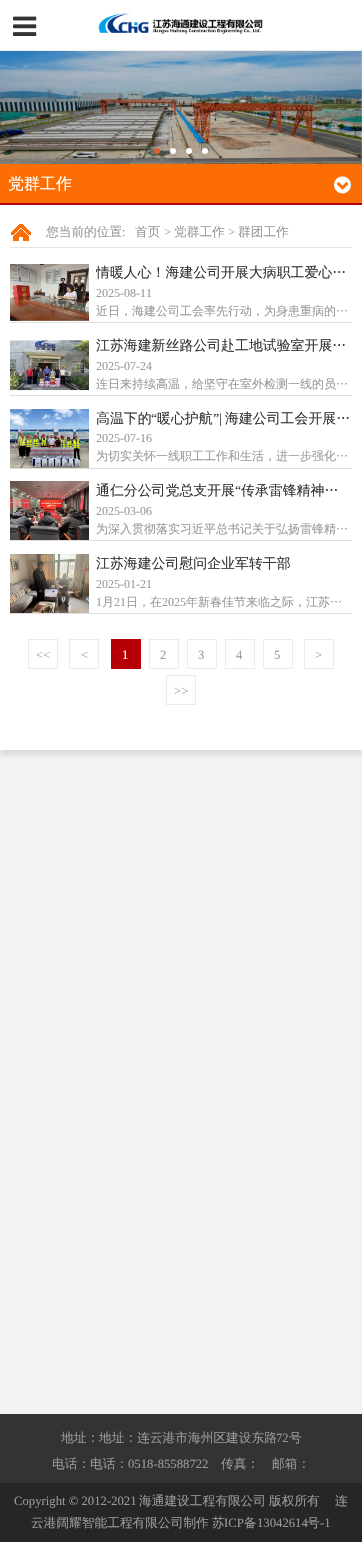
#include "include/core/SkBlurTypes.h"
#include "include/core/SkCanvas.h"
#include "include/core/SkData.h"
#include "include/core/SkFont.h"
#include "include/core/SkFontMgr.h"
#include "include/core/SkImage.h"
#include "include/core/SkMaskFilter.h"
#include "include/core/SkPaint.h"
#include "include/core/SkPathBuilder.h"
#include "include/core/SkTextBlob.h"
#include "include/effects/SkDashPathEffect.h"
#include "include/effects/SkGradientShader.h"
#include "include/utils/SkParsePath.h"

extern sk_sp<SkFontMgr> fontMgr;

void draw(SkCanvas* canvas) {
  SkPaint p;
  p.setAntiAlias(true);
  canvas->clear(SkColorSetRGB(243, 243, 243));
  p.setColor(SK_ColorWHITE);
  canvas->drawRect(SkRect::MakeLTRB(0, 0, 362, 50), p);
  p.setColor(SkColorSetRGB(236, 236, 236));
  canvas->drawRect(SkRect::MakeLTRB(0, 50, 362, 51), p);
  canvas->drawImageRect(SkImages::DeferredFromEncodedData(SkData::MakeFromFileName("images/1.png")), SkRect::MakeLTRB(13, 16, 37, 36), SkSamplingOptions());
  canvas->drawImageRect(SkImages::DeferredFromEncodedData(SkData::MakeFromFileName("images/2.png")), SkRect::MakeLTRB(98, 13, 263, 34), SkSamplingOptions());
  p.setColor(SkColorSetARGB(26, 0, 0, 0));
  p.setMaskFilter(SkMaskFilter::MakeBlur(kNormal_SkBlurStyle, 2.5f));
  canvas->drawRect(SkRect::MakeLTRB(0, 169, 362, 755), p);
  p.setMaskFilter(nullptr);
  canvas->drawImageRect(SkImages::DeferredFromEncodedData(SkData::MakeFromFileName("images/3.png")), SkRect::MakeLTRB(0, 51, 362, 164), SkSamplingOptions());
  p.setColor(SkColorSetRGB(220, 93, 50));
  canvas->drawCircle(157, 151, 3, p);
  p.setColor(SK_ColorWHITE);
  canvas->drawCircle(173, 151, 3, p);
  canvas->drawCircle(189, 151, 3, p);
  canvas->drawCircle(205, 151, 3, p);
  canvas->drawRect(SkRect::MakeLTRB(0, 205, 362, 750), p);
  p.setColor(SkColorSetRGB(182, 0, 5));
  canvas->drawRect(SkRect::MakeLTRB(0, 203, 362, 205), p);
  p.setColor(SkColorSetRGB(252, 110, 3));
  canvas->drawRect(SkRect::MakeLTRB(0, 164, 362, 203), p);
  canvas->drawImageRect(SkImages::DeferredFromEncodedData(SkData::MakeFromFileName("images/4.png")), SkRect::MakeLTRB(334, 176, 351, 194), SkSamplingOptions());
  canvas->drawImageRect(SkImages::DeferredFromEncodedData(SkData::MakeFromFileName("images/5.png")), SkRect::MakeLTRB(11, 224, 31, 241), SkSamplingOptions());
  p.setColor(SkColorSetRGB(229, 229, 229));
  canvas->drawRect(SkRect::MakeLTRB(10, 247, 352, 248), p);
  p.setColor(SkColorSetRGB(223, 223, 223));
  canvas->drawRect(SkRect::MakeLTRB(10, 322, 352, 323), p);
  canvas->drawImageRect(SkImages::DeferredFromEncodedData(SkData::MakeFromFileName("images/6.png")), SkRect::MakeLTRB(10, 264, 89, 321), SkSamplingOptions());
  canvas->drawRect(SkRect::MakeLTRB(10, 395, 352, 396), p);
  canvas->drawImageRect(SkImages::DeferredFromEncodedData(SkData::MakeFromFileName("images/7.png")), SkRect::MakeLTRB(10, 340, 89, 391), SkSamplingOptions());
  canvas->drawRect(SkRect::MakeLTRB(10, 468, 352, 469), p);
  canvas->drawImageRect(SkImages::DeferredFromEncodedData(SkData::MakeFromFileName("images/8.png")), SkRect::MakeLTRB(10, 409, 89, 468), SkSamplingOptions());
  canvas->drawRect(SkRect::MakeLTRB(10, 540, 352, 541), p);
  canvas->drawImageRect(SkImages::DeferredFromEncodedData(SkData::MakeFromFileName("images/9.png")), SkRect::MakeLTRB(10, 481, 89, 540), SkSamplingOptions());
  canvas->drawRect(SkRect::MakeLTRB(10, 613, 352, 614), p);
  canvas->drawImageRect(SkImages::DeferredFromEncodedData(SkData::MakeFromFileName("images/10.png")), SkRect::MakeLTRB(10, 554, 89, 613), SkSamplingOptions());
  p.setStyle(SkPaint::kStroke_Style);
  p.setStrokeWidth(1);
  p.setColor(SkColorSetRGB(235, 235, 235));
  canvas->drawRect(SkRect::MakeLTRB(28.5f, 639.5f, 57.5f, 668.5f), p);
  canvas->drawRect(SkRect::MakeLTRB(69.5f, 639.5f, 98.5f, 668.5f), p);
  p.setStyle(SkPaint::kFill_Style);
  p.setColor(SkColorSetRGB(182, 0, 5));
  canvas->drawRect(SkRect::MakeLTRB(111, 639, 141, 669), p);
  p.setStyle(SkPaint::kStroke_Style);
  p.setColor(SkColorSetRGB(235, 235, 235));
  canvas->drawRect(SkRect::MakeLTRB(149.5f, 639.5f, 178.5f, 668.5f), p);
  canvas->drawRect(SkRect::MakeLTRB(187.5f, 639.5f, 216.5f, 668.5f), p);
  canvas->drawRect(SkRect::MakeLTRB(225.5f, 639.5f, 254.5f, 668.5f), p);
  canvas->drawRect(SkRect::MakeLTRB(263.5f, 639.5f, 292.5f, 668.5f), p);
  canvas->drawRect(SkRect::MakeLTRB(304.5f, 639.5f, 333.5f, 668.5f), p);
  canvas->drawRect(SkRect::MakeLTRB(166.5f, 675.5f, 195.5f, 704.5f), p);
  p.setStyle(SkPaint::kFill_Style);
  p.setColor(SkColorSetRGB(51, 51, 51));
  canvas->drawRect(SkRect::MakeLTRB(0, 1414, 362, 1483), p);
  p.setColor(SkColorSetRGB(38, 38, 38));
  canvas->drawRect(SkRect::MakeLTRB(0, 1483, 362, 1542), p);
  SkFont font1(fontMgr->matchFamilyStyle("WenQuanYi Zen Hei", SkFontStyle(500, SkFontStyle::kNormal_Width, SkFontStyle::kUpright_Slant)), 16);
  font1.setSubpixel(true);
  p.setColor(SK_ColorWHITE);
  canvas->drawString("党群工作", 8, 189, font1, p);
  SkFont font2(fontMgr->matchFamilyStyle("WenQuanYi Zen Hei", SkFontStyle(500, SkFontStyle::kNormal_Width, SkFontStyle::kUpright_Slant)), 12.7f);
  font2.setSubpixel(true);
  p.setColor(SkColorSetRGB(153, 153, 153));
  canvas->drawString("您当前的位置", 46, 236, font2, p);
  SkFont font3(fontMgr->matchFamilyStyle("Liberation Serif", SkFontStyle::Normal()), 12.7f);
  font3.setSubpixel(true);
  canvas->drawString(":", 122, 236, font3, p);
  canvas->drawString("首页", 135, 236, font2, p);
  canvas->drawString(">", 164, 236, font3, p);
  canvas->drawString("党群工作", 174, 236, font2, p);
  canvas->drawString(">", 228, 236, font3, p);
  canvas->drawString("群团工作", 238, 236, font2, p);
  canvas->save();
  canvas->clipRect(SkRect::MakeLTRB(96, 263, 352, 284));
  SkFont font4(fontMgr->matchFamilyStyle("WenQuanYi Zen Hei", SkFontStyle(500, SkFontStyle::kNormal_Width, SkFontStyle::kUpright_Slant)), 13.9f);
  font4.setSubpixel(true);
  p.setColor(SkColorSetRGB(51, 51, 51));
  canvas->drawString("情暖人心！海建公司开展大病职工爱心…", 96, 277, font4, p);
  canvas->restore();
  SkFont font5(fontMgr->matchFamilyStyle("Liberation Serif", SkFontStyle::Normal()), 12);
  font5.setSubpixel(true);
  p.setColor(SkColorSetRGB(153, 153, 153));
  canvas->drawString("2025-08-11", 96, 297, font5, p);
  SkFont font6(fontMgr->matchFamilyStyle("WenQuanYi Zen Hei", SkFontStyle(500, SkFontStyle::kNormal_Width, SkFontStyle::kUpright_Slant)), 12);
  font6.setSubpixel(true);
  canvas->drawString("近日，海建公司工会率先行动，为身患重病的…", 96, 315, font6, p);
  p.setColor(SkColorSetRGB(51, 51, 51));
  canvas->drawString("江苏海建新丝路公司赴工地试验室开展…", 96, 350, font4, p);
  p.setColor(SkColorSetRGB(153, 153, 153));
  canvas->drawString("2025-07-24", 96, 370, font5, p);
  canvas->drawString("连日来持续高温，给坚守在室外检测一线的员…", 96, 388, font6, p);
  p.setColor(SkColorSetRGB(51, 51, 51));
  canvas->drawString("高温下的", 96, 423, font4, p);
  SkFont font7(fontMgr->matchFamilyStyle("Liberation Serif", SkFontStyle::Normal()), 13.9f);
  font7.setSubpixel(true);
  canvas->drawString("“", 151, 423, font7, p);
  canvas->drawString("暖心护航", 157, 423, font4, p);
  canvas->drawString("”|", 213, 423, font7, p);
  canvas->drawString("海建公司工会开展…", 225, 423, font4, p);
  p.setColor(SkColorSetRGB(153, 153, 153));
  canvas->drawString("2025-07-16", 96, 442, font5, p);
  canvas->drawString("为切实关怀一线职工工作和生活，进一步强化…", 96, 460, font6, p);
  p.setColor(SkColorSetRGB(51, 51, 51));
  canvas->drawString("通仁分公司党总支开展", 96, 495, font4, p);
  canvas->drawString("“", 235, 495, font7, p);
  canvas->drawString("传承雷锋精神…", 241, 495, font4, p);
  p.setColor(SkColorSetRGB(153, 153, 153));
  canvas->drawString("2025-03-06", 96, 515, font5, p);
  canvas->drawString("为深入贯彻落实习近平总书记关于弘扬雷锋精…", 96, 533, font6, p);
  p.setColor(SkColorSetRGB(51, 51, 51));
  canvas->drawString("江苏海建公司慰问企业军转干部", 96, 568, font4, p);
  p.setColor(SkColorSetRGB(153, 153, 153));
  canvas->drawString("2025-01-21", 96, 588, font5, p);
  canvas->drawString("1", 96, 606, font5, p);
  canvas->drawString("月", 102, 606, font6, p);
  canvas->drawString("21", 114, 606, font5, p);
  canvas->drawString("日，在", 126, 606, font6, p);
  canvas->drawString("2025", 162, 606, font5, p);
  canvas->drawString("年新春佳节来临之际，江苏…", 186, 606, font6, p);
  canvas->drawString("<<", 36, 659, font3, p);
  canvas->drawString("<", 81, 659, font3, p);
  p.setColor(SK_ColorWHITE);
  canvas->drawString("1", 122, 659, font3, p);
  p.setColor(SkColorSetRGB(153, 153, 153));
  canvas->drawString("2", 160, 659, font3, p);
  canvas->drawString("3", 198, 659, font3, p);
  canvas->drawString("4", 236, 659, font3, p);
  canvas->drawString("5", 274, 659, font3, p);
  canvas->drawString(">", 315, 659, font3, p);
  canvas->drawString(">>", 174, 695, font3, p);
  canvas->drawString("地址：地址：连云港市海州区建设东路", 61, 1442, font2, p);
  canvas->drawString("72", 276, 1442, font3, p);
  canvas->drawString("号", 289, 1442, font2, p);
  canvas->drawString("电话：电话：", 52, 1468, font2, p);
  canvas->drawString("0518-85588722", 128, 1468, font3, p);
  canvas->drawString("传真：", 221, 1468, font2, p);
  canvas->drawString("邮箱：", 272, 1468, font2, p);
  canvas->drawString("Copyright © 2012-2021", 14, 1505, font3, p);
  canvas->drawString("海通建设工程有限公司", 139, 1505, font2, p);
  canvas->drawString("版权所有", 269, 1505, font2, p);
  canvas->drawString("连", 335, 1505, font2, p);
  canvas->drawString("云港阔耀智能工程有限公司制作", 31, 1527, font2, p);
  canvas->drawString("苏", 212, 1527, font2, p);
  canvas->drawString("ICP", 224, 1527, font3, p);
  canvas->drawString("备", 244, 1527, font2, p);
  canvas->drawString("13042614", 257, 1527, font3, p);
  canvas->drawString("号", 307, 1527, font2, p);
  canvas->drawString("-1", 320, 1527, font3, p);
}
